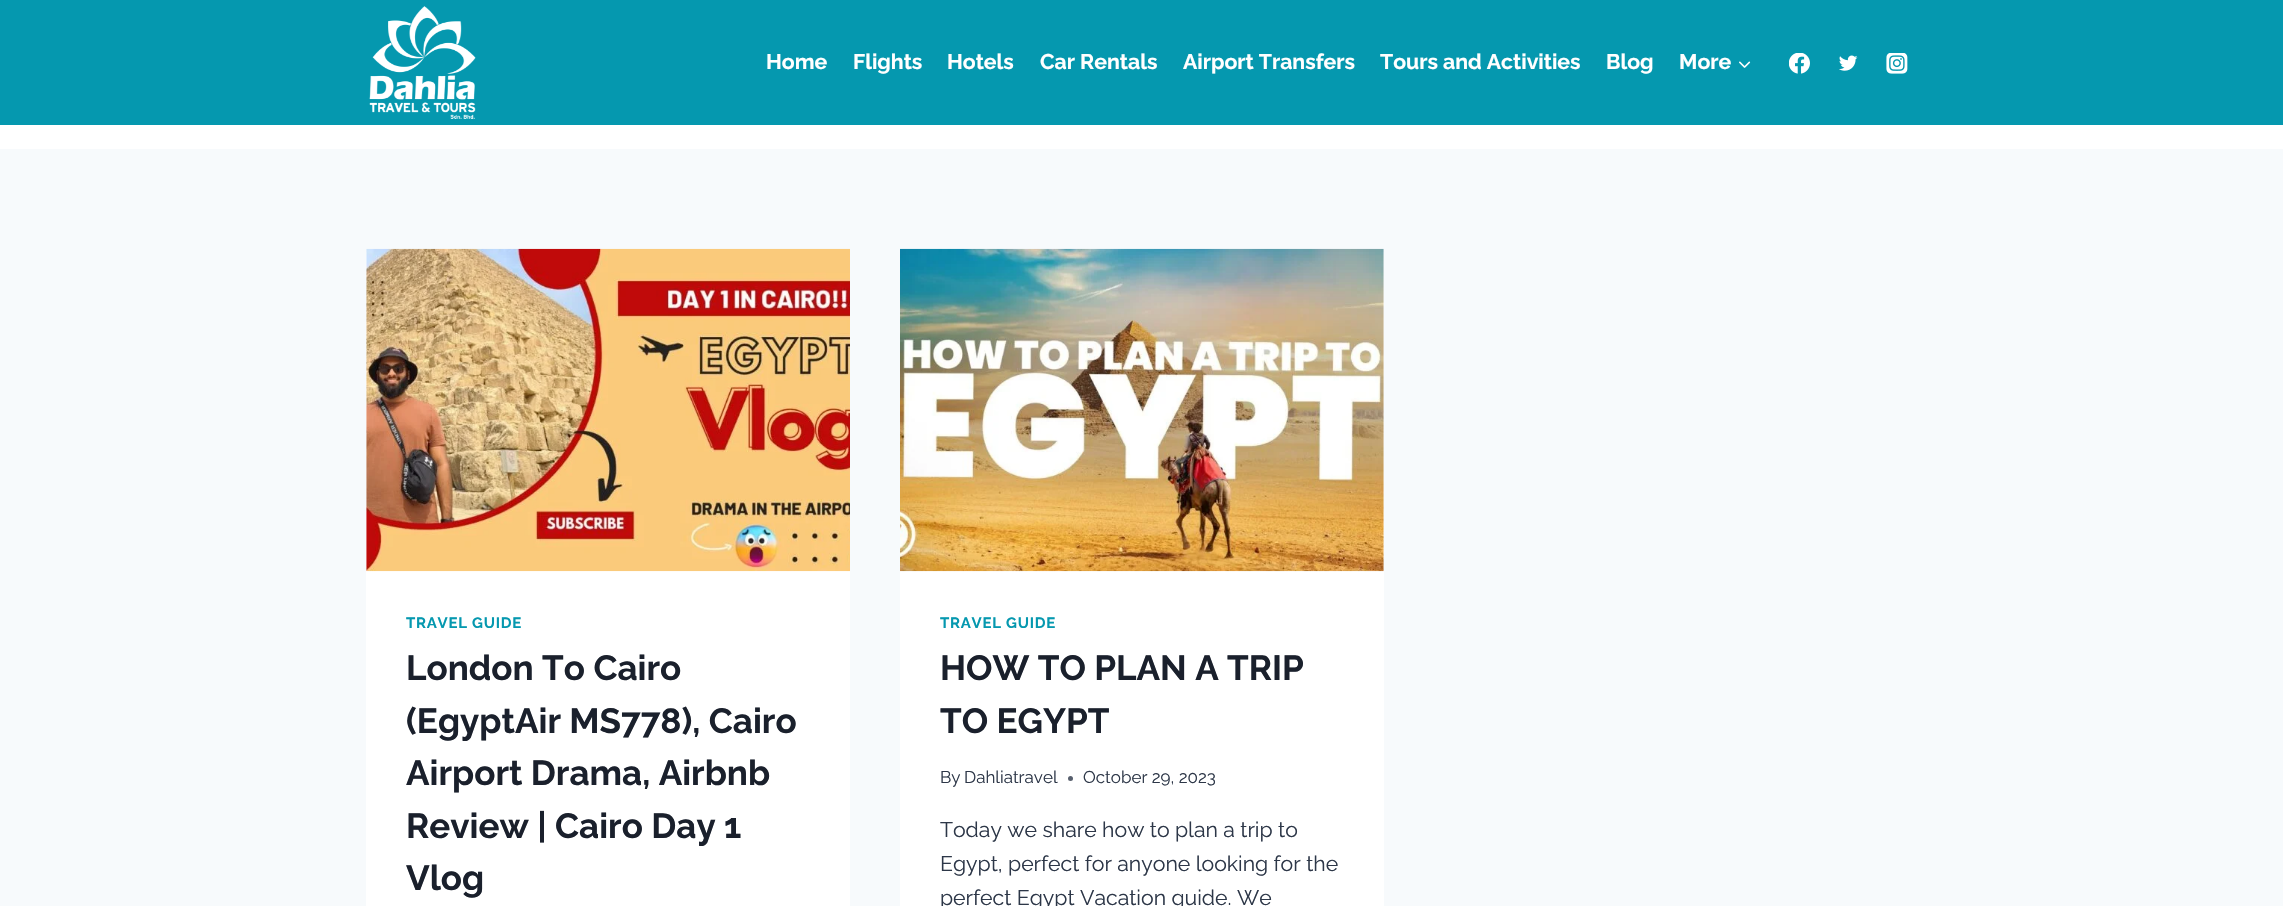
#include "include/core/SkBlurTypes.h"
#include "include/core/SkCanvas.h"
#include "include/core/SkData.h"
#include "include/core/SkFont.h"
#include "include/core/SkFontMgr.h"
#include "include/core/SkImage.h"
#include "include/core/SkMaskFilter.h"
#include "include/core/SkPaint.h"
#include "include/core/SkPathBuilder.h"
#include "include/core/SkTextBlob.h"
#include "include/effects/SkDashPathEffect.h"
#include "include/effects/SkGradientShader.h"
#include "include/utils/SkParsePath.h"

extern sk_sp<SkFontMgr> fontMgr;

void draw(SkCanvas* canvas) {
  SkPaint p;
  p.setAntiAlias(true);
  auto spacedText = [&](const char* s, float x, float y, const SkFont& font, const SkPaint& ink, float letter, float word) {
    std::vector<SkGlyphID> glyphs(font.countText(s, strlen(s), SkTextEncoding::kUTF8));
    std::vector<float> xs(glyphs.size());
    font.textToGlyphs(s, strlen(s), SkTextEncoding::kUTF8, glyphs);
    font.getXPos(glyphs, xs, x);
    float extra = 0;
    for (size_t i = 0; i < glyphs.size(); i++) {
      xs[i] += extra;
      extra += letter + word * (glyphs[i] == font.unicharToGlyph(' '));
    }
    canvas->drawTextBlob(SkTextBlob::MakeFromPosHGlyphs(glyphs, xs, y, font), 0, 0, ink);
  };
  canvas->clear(SkColorSetRGB(247, 250, 252));
  p.setColor(SK_ColorWHITE);
  canvas->drawRect(SkRect::MakeLTRB(0, 125, 2283, 149), p);
  p.setColor(SkColorSetRGB(5, 152, 175));
  canvas->drawRect(SkRect::MakeLTRB(0, 0, 2283, 125), p);
  canvas->drawImageRect(SkImages::DeferredFromEncodedData(SkData::MakeFromFileName("images/1.png")), SkRect::MakeLTRB(369, 6, 476, 119), SkSamplingOptions());
  canvas->drawImageRect(SkImages::DeferredFromEncodedData(SkData::MakeFromFileName("images/2.png")), SkRect::MakeLTRB(1739, 61, 1751, 68), SkSamplingOptions());
  canvas->drawImageRect(SkImages::DeferredFromEncodedData(SkData::MakeFromFileName("images/3.png")), SkRect::MakeLTRB(1789, 53, 1810, 74), SkSamplingOptions());
  canvas->drawImageRect(SkImages::DeferredFromEncodedData(SkData::MakeFromFileName("images/4.png")), SkRect::MakeLTRB(1839, 55, 1858, 71), SkSamplingOptions());
  canvas->drawImageRect(SkImages::DeferredFromEncodedData(SkData::MakeFromFileName("images/5.png")), SkRect::MakeLTRB(1886, 53, 1908, 74), SkSamplingOptions());
  p.setColor(SK_ColorWHITE);
  canvas->drawRoundRect(SkRect::MakeLTRB(366, 249, 850, 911), 5, 5, p);
  canvas->drawImageRect(SkImages::DeferredFromEncodedData(SkData::MakeFromFileName("images/6.png")), SkRect::MakeLTRB(366, 248, 850, 572), SkSamplingOptions());
  canvas->drawRoundRect(SkRect::MakeLTRB(900, 249, 1384, 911), 5, 5, p);
  canvas->drawImageRect(SkImages::DeferredFromEncodedData(SkData::MakeFromFileName("images/7.png")), SkRect::MakeLTRB(900, 248, 1384, 572), SkSamplingOptions());
  p.setColor(SkColorSetRGB(87, 95, 109));
  canvas->drawCircle(1070.5f, 778.5f, 2.5f, p);
  SkFont font1(fontMgr->matchFamilyStyle("Raleway", SkFontStyle::Bold()), 21.25f);
  font1.setSubpixel(true);
  p.setColor(SK_ColorWHITE);
  canvas->drawString("Home", 766, 69, font1, p);
  canvas->drawString("Flights", 853, 69, font1, p);
  canvas->drawString("Hotels", 947, 69, font1, p);
  canvas->drawString("Car Rentals", 1040, 69, font1, p);
  canvas->drawString("Airport Transfers", 1183, 69, font1, p);
  canvas->drawString("Tours and Activities", 1380, 69, font1, p);
  canvas->drawString("Blog", 1606, 69, font1, p);
  canvas->drawString("More", 1679, 69, font1, p);
  SkFont font2(fontMgr->matchFamilyStyle("Raleway", SkFontStyle::Bold()), 15);
  font2.setSubpixel(true);
  p.setColor(SkColorSetRGB(5, 152, 175));
  spacedText("TRAVEL GUIDE", 406, 628, font2, p, 0.75f, 0);
  SkFont font3(fontMgr->matchFamilyStyle("Raleway", SkFontStyle::Bold()), 35);
  font3.setSubpixel(true);
  p.setColor(SkColorSetRGB(26, 32, 44));
  canvas->drawString("London To Cairo", 406, 680, font3, p);
  canvas->drawString("(EgyptAir MS778), Cairo", 406, 733, font3, p);
  canvas->drawString("Airport Drama, Airbnb", 406, 785, font3, p);
  canvas->drawString("Review | Cairo Day 1", 406, 838, font3, p);
  canvas->drawString("Vlog", 406, 890, font3, p);
  p.setColor(SkColorSetRGB(5, 152, 175));
  spacedText("TRAVEL GUIDE", 940, 628, font2, p, 0.75f, 0);
  p.setColor(SkColorSetRGB(26, 32, 44));
  canvas->drawString("HOW TO PLAN A TRIP", 940, 680, font3, p);
  canvas->drawString("TO EGYPT", 940, 733, font3, p);
  SkFont font4(fontMgr->matchFamilyStyle("Raleway", SkFontStyle::Normal()), 17);
  font4.setSubpixel(true);
  p.setColor(SkColorSetRGB(45, 55, 72));
  canvas->drawString("By", 940, 783, font4, p);
  canvas->drawString("Dahliatravel", 964, 783, font4, p);
  canvas->drawString("October 29, 2023", 1083, 783, font4, p);
  SkFont font5(fontMgr->matchFamilyStyle("Raleway", SkFontStyle::Normal()), 21.25f);
  font5.setSubpixel(true);
  canvas->drawString("Today we share how to plan a trip to", 940, 837, font5, p);
  canvas->drawString("Egypt, perfect for anyone looking for the", 940, 871, font5, p);
  canvas->drawString("perfect Egypt Vacation guide. We", 940, 905, font5, p);
}
